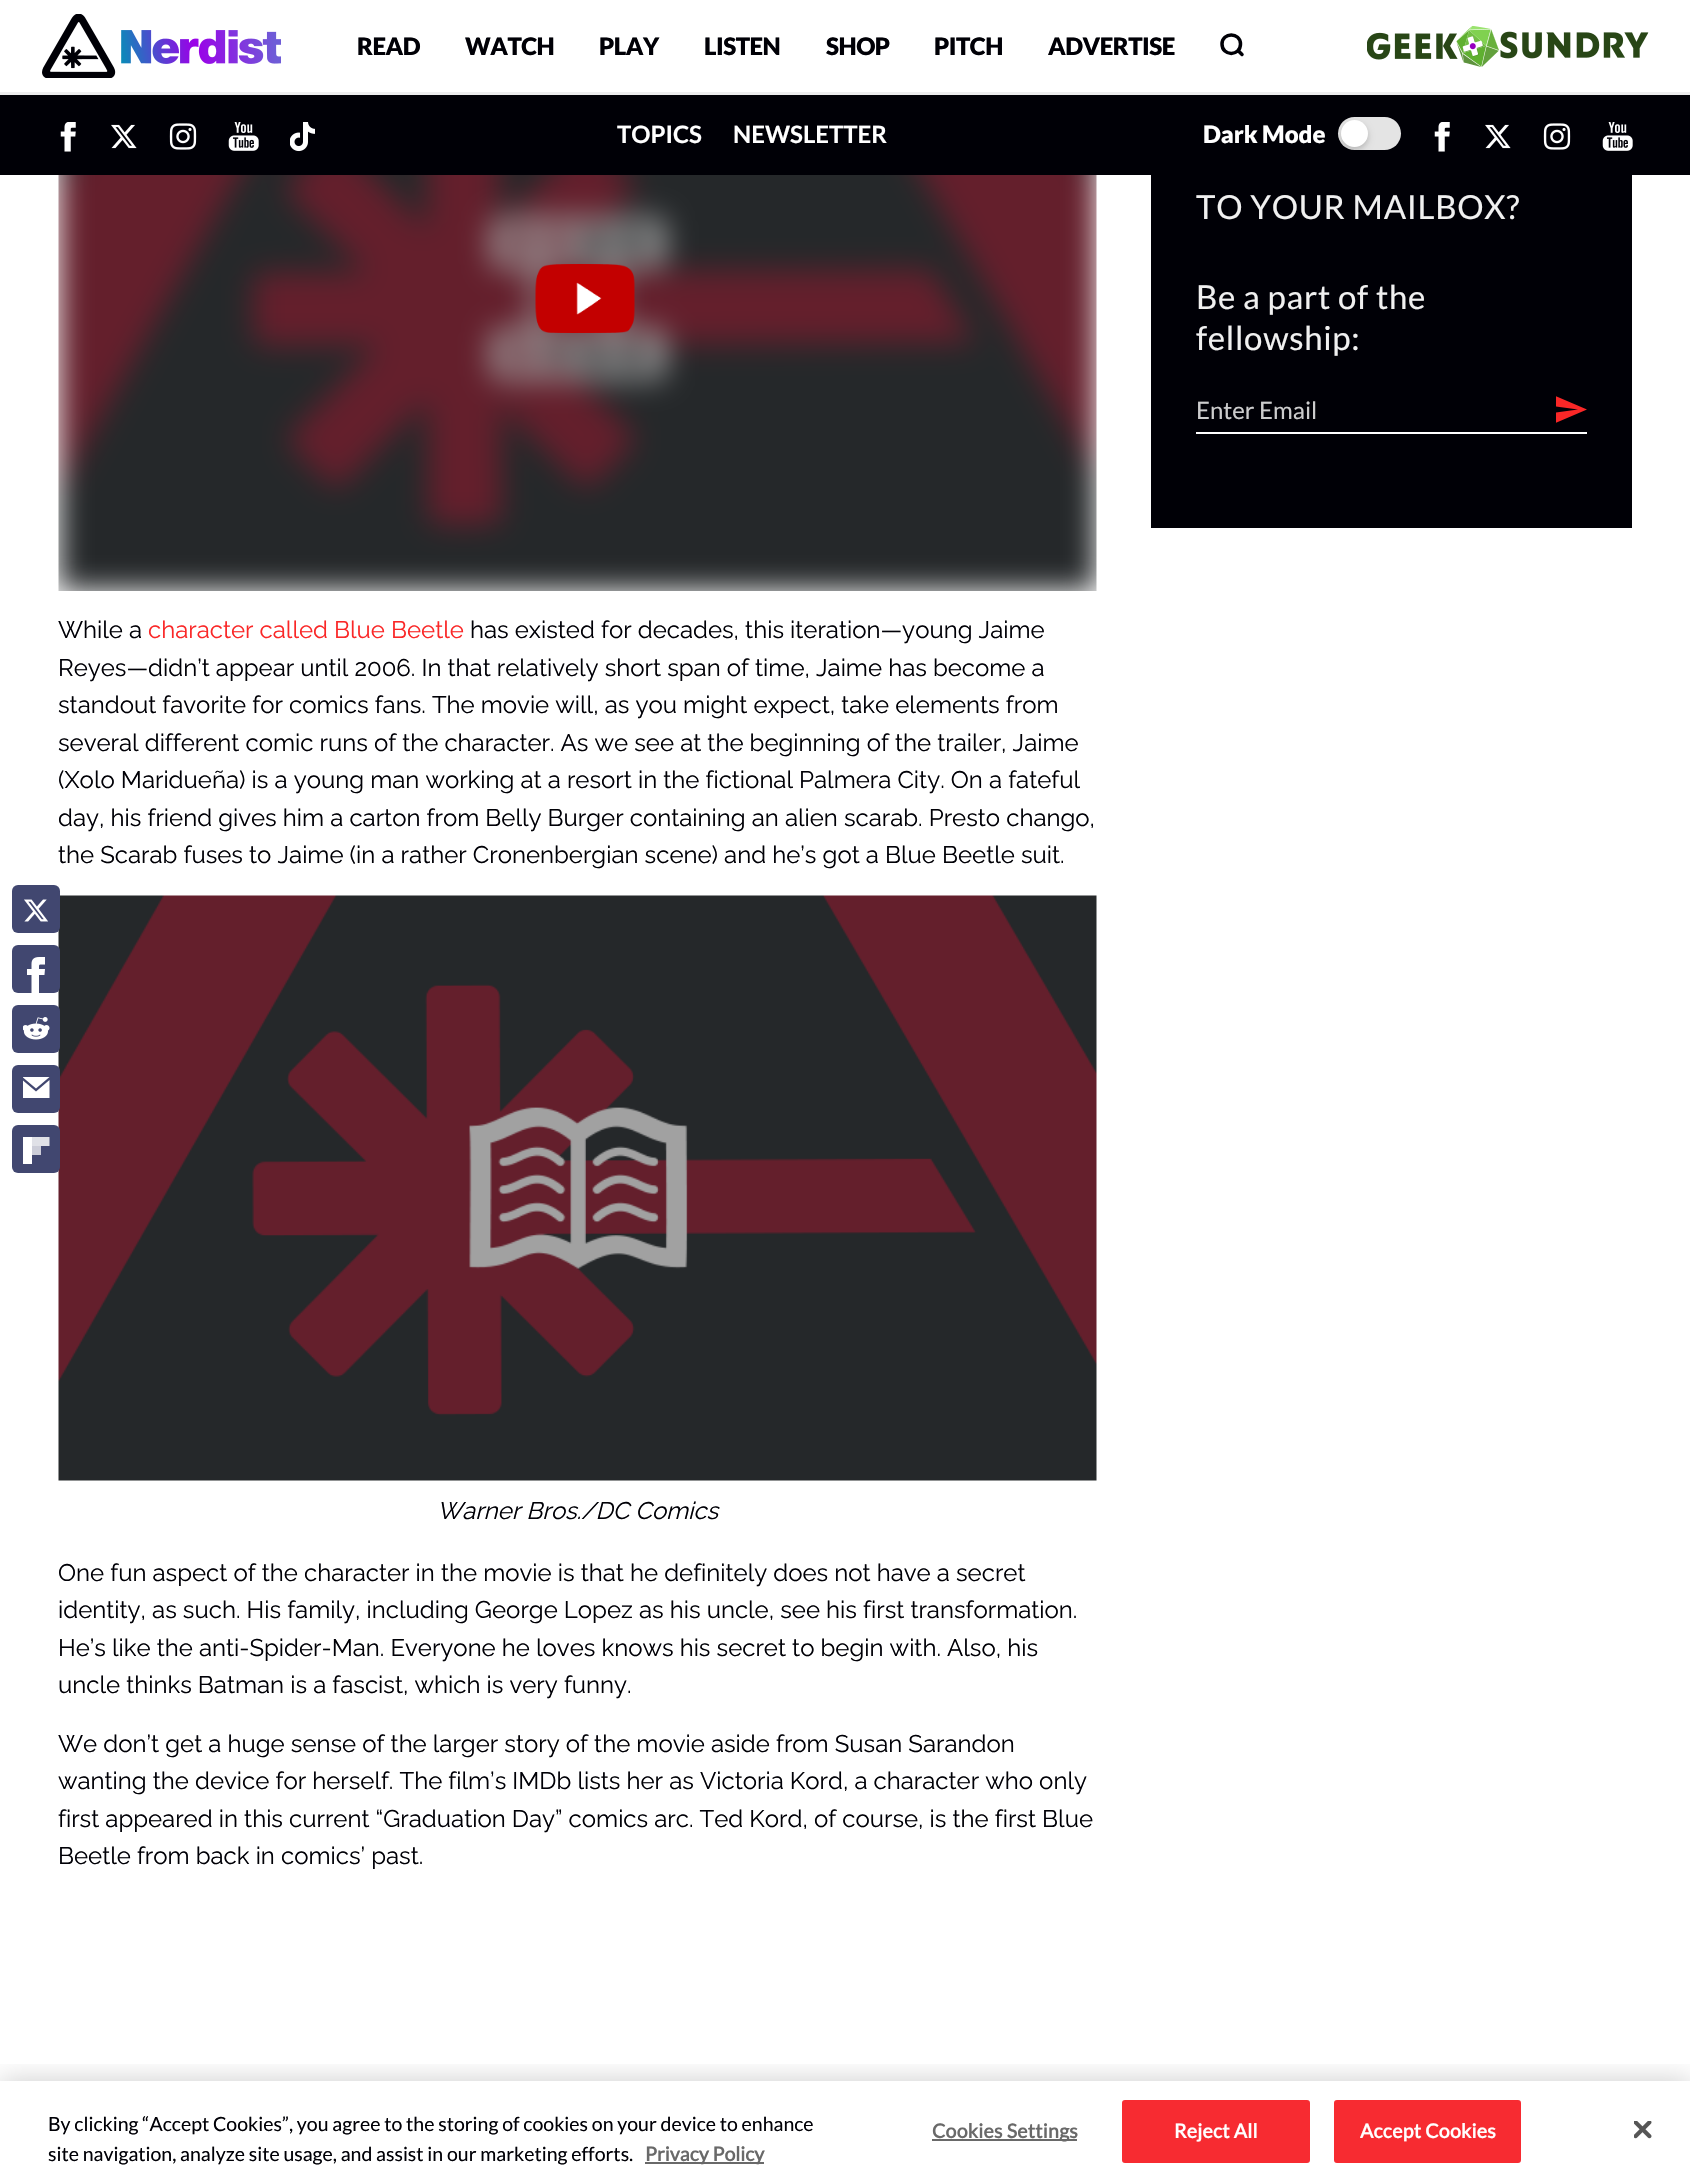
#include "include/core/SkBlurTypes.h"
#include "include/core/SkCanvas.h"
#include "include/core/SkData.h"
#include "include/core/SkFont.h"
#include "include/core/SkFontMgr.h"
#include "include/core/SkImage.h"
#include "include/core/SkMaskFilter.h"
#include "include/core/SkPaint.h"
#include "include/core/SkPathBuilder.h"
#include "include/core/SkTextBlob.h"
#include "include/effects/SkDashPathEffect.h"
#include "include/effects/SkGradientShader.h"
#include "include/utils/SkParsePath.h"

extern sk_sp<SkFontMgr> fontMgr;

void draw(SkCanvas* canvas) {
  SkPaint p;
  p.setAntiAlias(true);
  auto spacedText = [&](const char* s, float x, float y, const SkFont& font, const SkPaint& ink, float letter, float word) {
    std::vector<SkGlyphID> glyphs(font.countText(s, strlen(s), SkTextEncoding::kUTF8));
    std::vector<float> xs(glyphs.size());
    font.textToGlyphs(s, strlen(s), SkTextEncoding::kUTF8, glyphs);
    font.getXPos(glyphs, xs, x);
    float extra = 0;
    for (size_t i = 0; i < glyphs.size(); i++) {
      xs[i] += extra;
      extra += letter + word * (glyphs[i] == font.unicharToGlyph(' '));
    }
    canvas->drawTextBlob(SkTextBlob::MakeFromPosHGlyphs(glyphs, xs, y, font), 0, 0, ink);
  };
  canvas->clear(SK_ColorWHITE);
  p.setColor(SkColorSetRGB(238, 238, 238));
  canvas->drawRect(SkRect::MakeLTRB(0, 92, 1690, 95), p);
  canvas->drawImageRect(SkImages::DeferredFromEncodedData(SkData::MakeFromFileName("images/1.png")), SkRect::MakeLTRB(42, 14, 281, 78), SkSamplingOptions());
  p.setStyle(SkPaint::kStroke_Style);
  p.setStrokeWidth(3.5f);
  p.setStrokeCap(SkPaint::kRound_Cap);
  p.setStrokeJoin(SkPaint::kRound_Join);
  p.setColor(SkColorSetRGB(0, 0, 6));
  canvas->drawPath(SkPathBuilder().moveTo(1240.5f, 44).cubicTo(1240.5f, 56.5f, 1222, 56.5f, 1222, 44).cubicTo(1222, 32, 1240.5f, 32, 1240.5f, 44).close().moveTo(1242, 54.5f).lineTo(1238, 50.5f).detach(), p);
  canvas->drawImageRect(SkImages::DeferredFromEncodedData(SkData::MakeFromFileName("images/2.png")), SkRect::MakeLTRB(1367, 25, 1649, 67), SkSamplingOptions());
  p.setStyle(SkPaint::kFill_Style);
  canvas->drawRect(SkRect::MakeLTRB(0, 95, 1690, 175), p);
  canvas->drawImageRect(SkImages::DeferredFromEncodedData(SkData::MakeFromFileName("images/3.png")), SkRect::MakeLTRB(60, 122, 76, 152), SkSamplingOptions());
  canvas->drawImageRect(SkImages::DeferredFromEncodedData(SkData::MakeFromFileName("images/4.png")), SkRect::MakeLTRB(111, 124, 137, 149), SkSamplingOptions());
  canvas->drawImageRect(SkImages::DeferredFromEncodedData(SkData::MakeFromFileName("images/5.png")), SkRect::MakeLTRB(169, 123, 197, 150), SkSamplingOptions());
  canvas->drawImageRect(SkImages::DeferredFromEncodedData(SkData::MakeFromFileName("images/6.png")), SkRect::MakeLTRB(228, 122, 259, 151), SkSamplingOptions());
  canvas->drawImageRect(SkImages::DeferredFromEncodedData(SkData::MakeFromFileName("images/7.png")), SkRect::MakeLTRB(290, 122, 315, 152), SkSamplingOptions());
  p.setColor(SkColorSetRGB(228, 228, 228));
  canvas->drawRoundRect(SkRect::MakeLTRB(1338, 117, 1401, 150), 16.5f, 16.5f, p);
  p.setColor(SkColorSetARGB(51, 0, 0, 0));
  p.setMaskFilter(SkMaskFilter::MakeBlur(kNormal_SkBlurStyle, 3));
  canvas->drawRoundRect(SkRect::MakeLTRB(1341, 123, 1368, 150), 13.5f, 13.5f, p);
  p.setMaskFilter(nullptr);
  p.setColor(SK_ColorWHITE);
  canvas->drawCircle(1354.5f, 133.5f, 13.5f, p);
  canvas->drawImageRect(SkImages::DeferredFromEncodedData(SkData::MakeFromFileName("images/3.png")), SkRect::MakeLTRB(1434, 122, 1450, 152), SkSamplingOptions());
  canvas->drawImageRect(SkImages::DeferredFromEncodedData(SkData::MakeFromFileName("images/4.png")), SkRect::MakeLTRB(1485, 124, 1511, 149), SkSamplingOptions());
  canvas->drawImageRect(SkImages::DeferredFromEncodedData(SkData::MakeFromFileName("images/5.png")), SkRect::MakeLTRB(1543, 123, 1571, 150), SkSamplingOptions());
  canvas->drawImageRect(SkImages::DeferredFromEncodedData(SkData::MakeFromFileName("images/6.png")), SkRect::MakeLTRB(1602, 122, 1633, 151), SkSamplingOptions());
  canvas->drawImageRect(SkImages::DeferredFromEncodedData(SkData::MakeFromFileName("images/13.png")), SkRect::MakeLTRB(58, 895, 1097, 1481), SkSamplingOptions());
  p.setColor(SkColorSetRGB(65, 71, 112));
  canvas->drawRoundRect(SkRect::MakeLTRB(12, 885, 60, 933), 6, 6, p);
  canvas->drawImageRect(SkImages::DeferredFromEncodedData(SkData::MakeFromFileName("images/8.png")), SkRect::MakeLTRB(24, 899, 48, 922), SkSamplingOptions());
  canvas->drawRoundRect(SkRect::MakeLTRB(12, 945, 60, 993), 6, 6, p);
  canvas->drawImageRect(SkImages::DeferredFromEncodedData(SkData::MakeFromFileName("images/9.png")), SkRect::MakeLTRB(27, 957, 45, 993), SkSamplingOptions());
  canvas->drawRoundRect(SkRect::MakeLTRB(12, 1005, 60, 1053), 6, 6, p);
  canvas->drawImageRect(SkImages::DeferredFromEncodedData(SkData::MakeFromFileName("images/10.png")), SkRect::MakeLTRB(23, 1017, 50, 1040), SkSamplingOptions());
  canvas->drawRoundRect(SkRect::MakeLTRB(12, 1065, 60, 1113), 6, 6, p);
  canvas->save();
  canvas->clipRect(SkRect::MakeLTRB(23, 1077, 50, 1098));
  p.setColor(SK_ColorWHITE);
  canvas->drawPath(SkPathBuilder().moveTo(36, 1088.5f).lineTo(22.5f, 1077).lineTo(49.5f, 1077).close().moveTo(36, 1091.5f).lineTo(22.5f, 1080).lineTo(22.5f, 1098).lineTo(49.5f, 1098).lineTo(49.5f, 1080).close().detach(), p);
  canvas->restore();
  p.setColor(SkColorSetRGB(65, 71, 112));
  canvas->drawRoundRect(SkRect::MakeLTRB(12, 1125, 60, 1173), 6, 6, p);
  p.setColor(SK_ColorWHITE);
  canvas->drawRect(SkRect::MakeLTRB(23, 1137, 32, 1164), p);
  p.setColor(SkColorSetARGB(217, 252, 252, 252));
  canvas->drawPath(SkPathBuilder().moveTo(40.5f, 1137).lineTo(31.5f, 1137).lineTo(31.5f, 1146).lineTo(49.5f, 1146).lineTo(49.5f, 1137).close().detach(), p);
  p.setColor(SkColorSetRGB(204, 205, 216));
  canvas->drawRect(SkRect::MakeLTRB(32, 1146, 41, 1155), p);
  p.setColor(SkColorSetRGB(0, 0, 6));
  canvas->drawRect(SkRect::MakeLTRB(1151, 175, 1632, 528), p);
  p.setColor(SK_ColorWHITE);
  canvas->drawRect(SkRect::MakeLTRB(1196, 432, 1587, 434), p);
  canvas->save();
  canvas->clipRect(SkRect::MakeLTRB(1556, 396, 1587, 423));
  p.setColor(SkColorSetRGB(250, 39, 39));
  canvas->drawPath(SkPathBuilder().moveTo(1555.5f, 423).lineTo(1587, 409.5f).lineTo(1555.5f, 396).lineTo(1555.5f, 406.5f).lineTo(1578, 409.5f).lineTo(1555.5f, 412.5f).close().detach(), p);
  canvas->restore();
  canvas->drawImageRect(SkImages::DeferredFromEncodedData(SkData::MakeFromFileName("images/11.png")), SkRect::MakeLTRB(58, 175, 1097, 591), SkSamplingOptions());
  canvas->drawImageRect(SkImages::DeferredFromEncodedData(SkData::MakeFromFileName("images/12.png")), SkRect::MakeLTRB(535, 264, 635, 333), SkSamplingOptions());
  canvas->save();
  canvas->clipRect(SkRect::MakeLTRB(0, 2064, 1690, 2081));
  p.setColor(SkColorSetARGB(51, 0, 0, 0));
  p.setMaskFilter(SkMaskFilter::MakeBlur(kNormal_SkBlurStyle, 13.5f));
  canvas->drawRect(SkRect::MakeLTRB(0, 2081, 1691, 2184), p);
  p.setMaskFilter(nullptr);
  canvas->restore();
  p.setColor(SkColorSetRGB(105, 105, 105));
  canvas->drawRect(SkRect::MakeLTRB(645, 2162, 764, 2164), p);
  canvas->drawRect(SkRect::MakeLTRB(932, 2139, 1077, 2141), p);
  p.setColor(SkColorSetRGB(247, 43, 49));
  canvas->drawRoundRect(SkRect::MakeLTRB(1123, 2101, 1309, 2162), 2, 2, p);
  p.setStyle(SkPaint::kStroke_Style);
  p.setStrokeWidth(2);
  p.setStrokeCap(SkPaint::kButt_Cap);
  p.setStrokeJoin(SkPaint::kMiter_Join);
  canvas->drawRoundRect(SkRect::MakeLTRB(1123, 2101, 1309, 2162), 2, 2, p);
  p.setStyle(SkPaint::kFill_Style);
  canvas->drawRoundRect(SkRect::MakeLTRB(1335, 2101, 1520, 2162), 2, 2, p);
  p.setStyle(SkPaint::kStroke_Style);
  canvas->drawRoundRect(SkRect::MakeLTRB(1335, 2101, 1520, 2162), 2, 2, p);
  canvas->drawImageRect(SkImages::DeferredFromEncodedData(SkData::MakeFromFileName("images/14.png")), SkRect::MakeLTRB(1634, 2121, 1652, 2139), SkSamplingOptions());
  SkFont font1(fontMgr->matchFamilyStyle("Lato", SkFontStyle(900, SkFontStyle::kNormal_Width, SkFontStyle::kUpright_Slant)), 24);
  font1.setSubpixel(true);
  p.setStyle(SkPaint::kFill_Style);
  p.setColor(SkColorSetRGB(0, 0, 6));
  spacedText("READ", 357, 55, font1, p, -0.5f, 0);
  spacedText("WATCH", 465, 55, font1, p, -0.5f, 0);
  spacedText("PLAY", 599, 55, font1, p, -0.5f, 0);
  spacedText("LISTEN", 704, 55, font1, p, -0.5f, 0);
  spacedText("SHOP", 826, 55, font1, p, -0.5f, 0);
  spacedText("PITCH", 934, 55, font1, p, -0.5f, 0);
  spacedText("ADVERTISE", 1048, 55, font1, p, -0.5f, 0);
  SkFont font2(fontMgr->matchFamilyStyle("Lato", SkFontStyle::Bold()), 24);
  font2.setSubpixel(true);
  p.setColor(SK_ColorWHITE);
  canvas->drawString("TOPICS", 617, 143, font2, p);
  canvas->drawString("NEWSLETTER", 733, 143, font2, p);
  canvas->drawString("Dark Mode", 1203, 143, font1, p);
  SkFont font3(fontMgr->matchFamilyStyle("Lato", SkFontStyle::Normal()), 33);
  font3.setSubpixel(true);
  p.setColor(SkColorSetRGB(240, 240, 240));
  spacedText("TO YOUR MAILBOX?", 1196, 219, font3, p, 0.7f, 0);
  spacedText("Be a part of the", 1196, 309, font3, p, 0.7f, 0);
  spacedText("fellowship:", 1196, 350, font3, p, 0.7f, 0);
  SkFont font4(fontMgr->matchFamilyStyle("Lato", SkFontStyle::Normal()), 24);
  font4.setSubpixel(true);
  p.setColor(SkColorSetRGB(204, 204, 205));
  canvas->drawString("Enter Email", 1196, 419, font4, p);
  SkFont font5(fontMgr->matchFamilyStyle("Raleway", SkFontStyle::Normal()), 24);
  font5.setSubpixel(true);
  p.setColor(SkColorSetRGB(0, 0, 6));
  canvas->drawString("While a", 58, 638, font5, p);
  p.setColor(SkColorSetRGB(250, 39, 39));
  canvas->drawString("character called Blue Beetle", 148, 638, font5, p);
  p.setColor(SkColorSetRGB(0, 0, 6));
  canvas->drawString("has existed for decades, this iteration—young Jaime", 470, 638, font5, p);
  canvas->drawString("Reyes—didn’t appear until 2006. In that relatively short span of time, Jaime has become a", 58, 676, font5, p);
  canvas->drawString("standout favorite for comics fans. The movie will, as you might expect, take elements from", 58, 713, font5, p);
  canvas->drawString("several different comic runs of the character. As we see at the beginning of the trailer, Jaime", 58, 751, font5, p);
  canvas->drawString("(Xolo Maridueña) is a young man working at a resort in the fictional Palmera City. On a fateful", 58, 788, font5, p);
  canvas->drawString("day, his friend gives him a carton from Belly Burger containing an alien scarab. Presto chango,", 58, 826, font5, p);
  canvas->drawString("the Scarab fuses to Jaime (in a rather Cronenbergian scene) and he’s got a Blue Beetle suit.", 58, 863, font5, p);
  SkFont font6(fontMgr->matchFamilyStyle("Raleway", SkFontStyle::Italic()), 24);
  font6.setSubpixel(true);
  canvas->drawString("Warner Bros./DC Comics", 437, 1519, font6, p);
  canvas->drawString("One fun aspect of the character in the movie is that he definitely does not have a secret", 58, 1581, font5, p);
  canvas->drawString("identity, as such. His family, including George Lopez as his uncle, see his first transformation.", 58, 1618, font5, p);
  canvas->drawString("He’s like the anti-Spider-Man. Everyone he loves knows his secret to begin with. Also, his", 58, 1656, font5, p);
  canvas->drawString("uncle thinks Batman is a fascist, which is very funny.", 58, 1693, font5, p);
  canvas->drawString("We don’t get a huge sense of the larger story of the movie aside from Susan Sarandon", 58, 1752, font5, p);
  canvas->drawString("wanting the device for herself. The film’s IMDb lists her as Victoria Kord, a character who only", 58, 1789, font5, p);
  canvas->drawString("first appeared in this current “Graduation Day” comics arc. Ted Kord, of course, is the first Blue", 58, 1827, font5, p);
  canvas->drawString("Beetle from back in comics’ past.", 58, 1864, font5, p);
  SkFont font7(fontMgr->matchFamilyStyle("Lato", SkFontStyle::Normal()), 19.5f);
  font7.setSubpixel(true);
  canvas->drawString("By clicking “Accept Cookies”, you agree to the storing of cookies on your device to enhance", 48, 2131, font7, p);
  canvas->drawString("site navigation, analyze site usage, and assist in our marketing efforts.", 48, 2161, font7, p);
  SkFont font8(fontMgr->matchFamilyStyle("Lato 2", SkFontStyle::Bold()), 19.5f);
  font8.setSubpixel(true);
  p.setColor(SkColorSetRGB(105, 105, 105));
  canvas->drawString("Privacy Policy", 645, 2161, font8, p);
  spacedText("Cookies Settings", 932, 2138, font8, p, 0.25f, 0);
  p.setColor(SK_ColorWHITE);
  spacedText("Reject All", 1174, 2138, font8, p, 0.25f, 0);
  spacedText("Accept Cookies", 1360, 2138, font8, p, 0.25f, 0);
}
